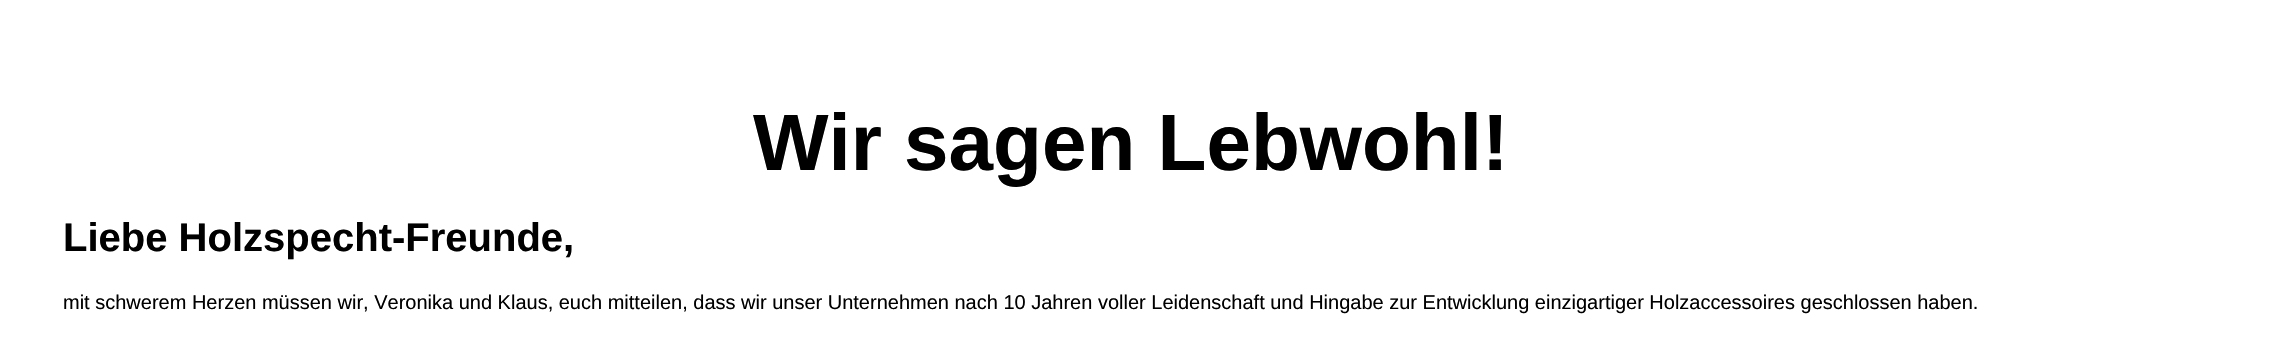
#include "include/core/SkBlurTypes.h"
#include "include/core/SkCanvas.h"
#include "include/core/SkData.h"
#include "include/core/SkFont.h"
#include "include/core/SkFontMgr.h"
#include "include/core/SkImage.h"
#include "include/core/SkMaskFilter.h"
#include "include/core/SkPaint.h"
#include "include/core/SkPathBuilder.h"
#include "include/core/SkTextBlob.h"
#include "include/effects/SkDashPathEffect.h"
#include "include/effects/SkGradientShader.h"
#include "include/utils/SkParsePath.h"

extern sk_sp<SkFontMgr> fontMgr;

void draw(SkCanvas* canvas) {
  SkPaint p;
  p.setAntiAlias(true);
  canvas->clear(SK_ColorWHITE);
  SkFont font1(fontMgr->matchFamilyStyle("Liberation Sans", SkFontStyle::Bold()), 80);
  font1.setSubpixel(true);
  p.setColor(SK_ColorBLACK);
  canvas->drawString("Wir sagen Lebwohl!", 753, 170, font1, p);
  SkFont font2(fontMgr->matchFamilyStyle("Liberation Sans", SkFontStyle::Bold()), 40);
  font2.setSubpixel(true);
  canvas->drawString("Liebe Holzspecht-Freunde,", 63, 251, font2, p);
  SkFont font3(fontMgr->matchFamilyStyle("Liberation Sans", SkFontStyle::Normal()), 20);
  font3.setSubpixel(true);
  canvas->drawString("mit schwerem Herzen müssen wir, Veronika und Klaus, euch mitteilen, dass wir unser Unternehmen nach 10 Jahren voller Leidenschaft und Hingabe zur Entwicklung einzigartiger Holzaccessoires geschlossen haben.", 63, 309, font3, p);
}
